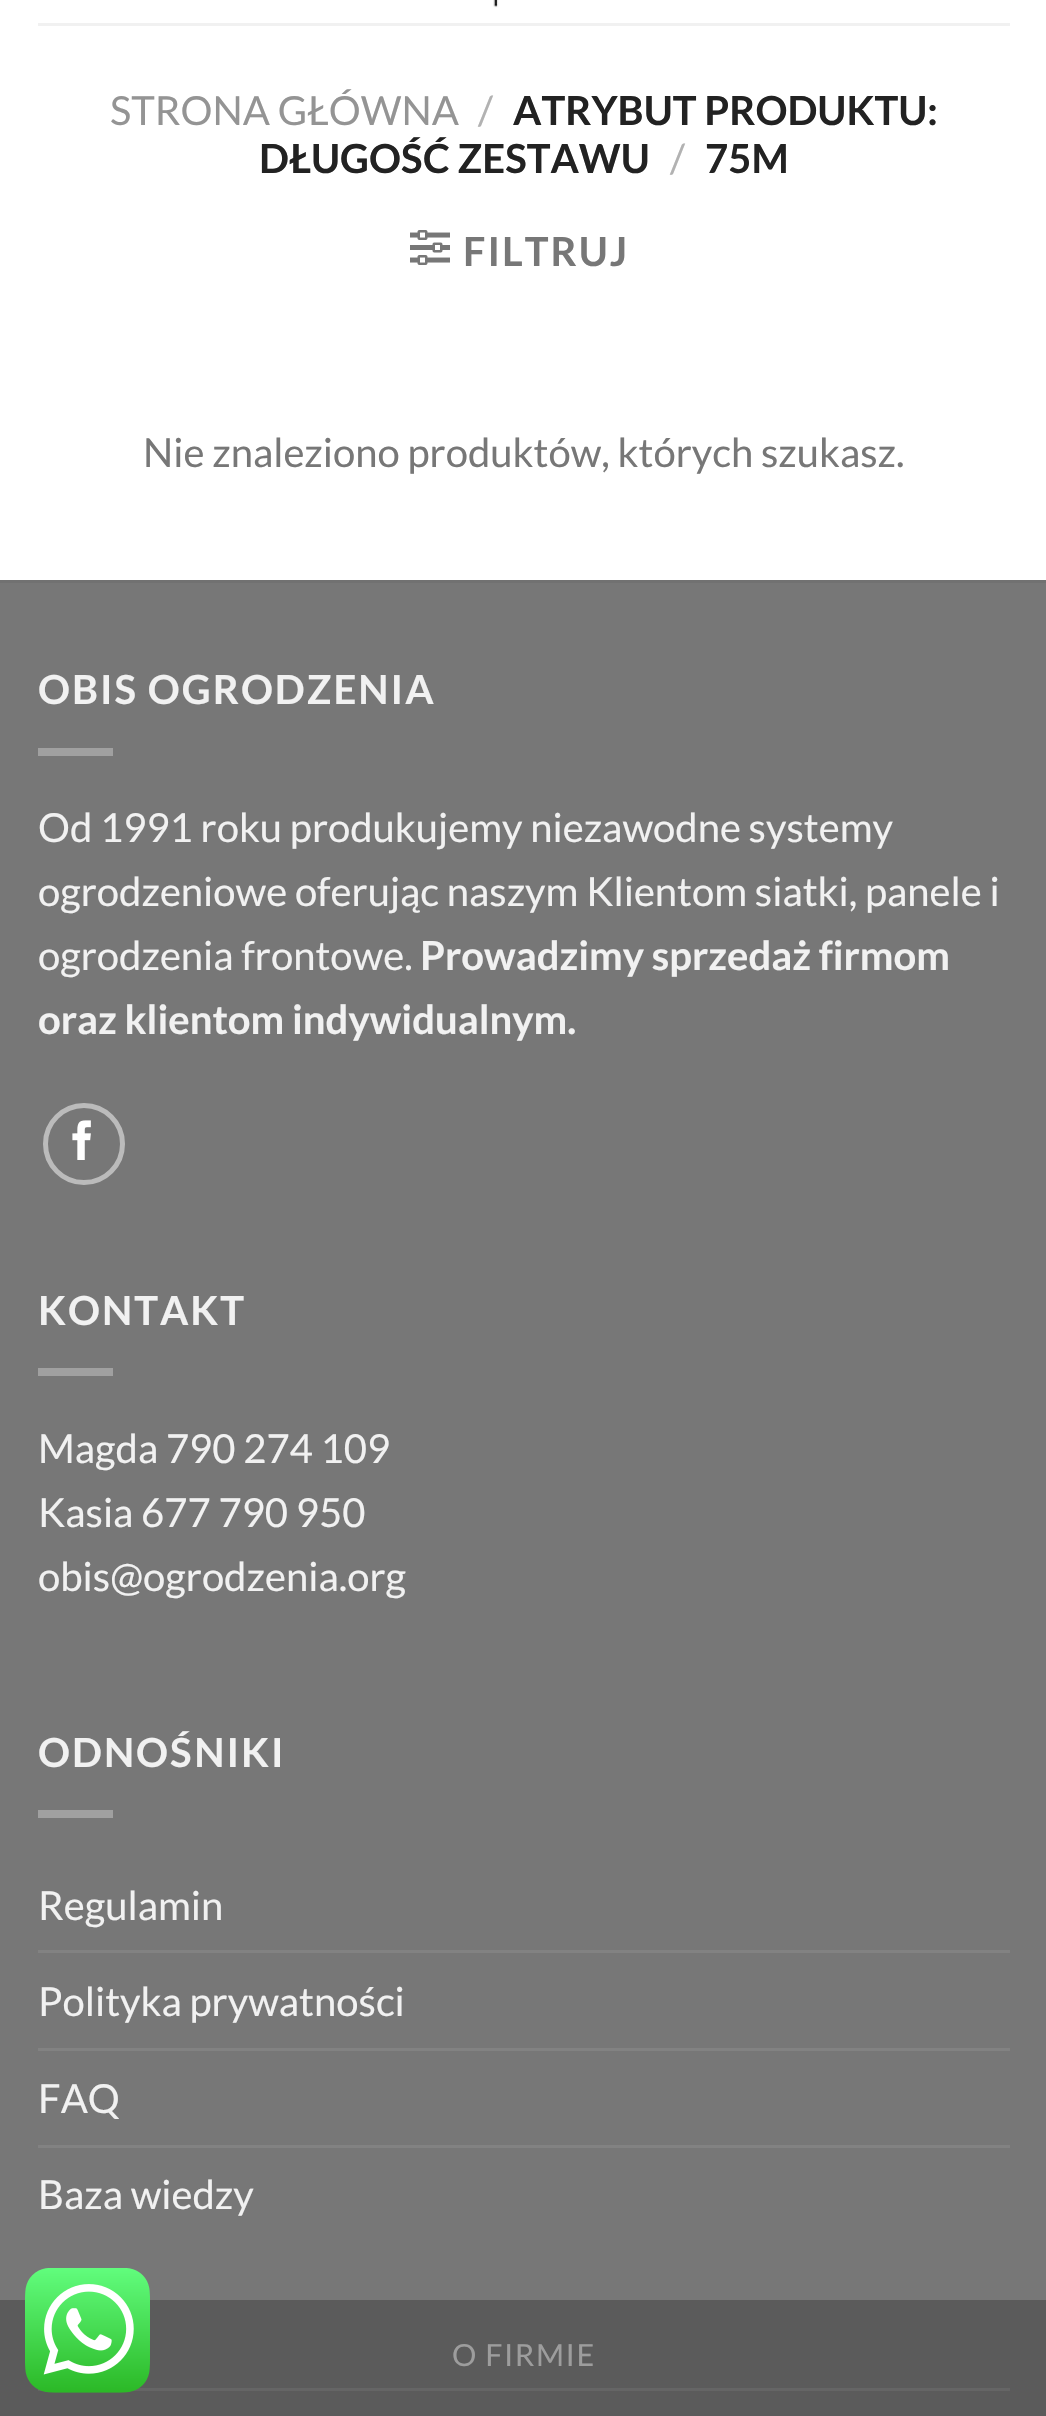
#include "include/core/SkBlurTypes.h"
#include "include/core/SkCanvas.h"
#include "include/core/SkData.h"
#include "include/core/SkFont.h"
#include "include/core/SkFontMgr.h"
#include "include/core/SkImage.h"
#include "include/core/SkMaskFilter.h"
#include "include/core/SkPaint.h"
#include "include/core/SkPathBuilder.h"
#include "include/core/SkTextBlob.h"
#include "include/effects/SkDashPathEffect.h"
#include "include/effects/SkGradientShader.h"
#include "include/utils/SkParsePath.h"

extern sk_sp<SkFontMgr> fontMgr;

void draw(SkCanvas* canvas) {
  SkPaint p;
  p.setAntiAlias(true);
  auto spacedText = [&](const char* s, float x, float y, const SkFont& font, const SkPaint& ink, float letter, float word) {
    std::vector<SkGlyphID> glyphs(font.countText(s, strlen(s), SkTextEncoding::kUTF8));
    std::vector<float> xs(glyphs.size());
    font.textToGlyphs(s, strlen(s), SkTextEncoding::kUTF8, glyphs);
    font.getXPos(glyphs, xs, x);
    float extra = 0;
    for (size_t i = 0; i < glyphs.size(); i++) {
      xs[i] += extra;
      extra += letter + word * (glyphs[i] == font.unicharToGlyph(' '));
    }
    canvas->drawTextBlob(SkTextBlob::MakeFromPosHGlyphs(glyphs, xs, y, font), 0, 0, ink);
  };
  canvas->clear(SK_ColorWHITE);
  canvas->drawImageRect(SkImages::DeferredFromEncodedData(SkData::MakeFromFileName("images/1.png")), SkRect::MakeLTRB(493, 0, 499, 8), SkSamplingOptions());
  p.setColor(SkColorSetRGB(241, 241, 241));
  canvas->drawRect(SkRect::MakeLTRB(38, 23, 1010, 26), p);
  canvas->drawImageRect(SkImages::DeferredFromEncodedData(SkData::MakeFromFileName("images/2.png")), SkRect::MakeLTRB(410, 230, 450, 265), SkSamplingOptions());
  p.setColor(SkColorSetRGB(119, 119, 119));
  canvas->drawRect(SkRect::MakeLTRB(0, 583, 1046, 2300), p);
  p.setColor(SkColorSetRGB(113, 113, 113));
  canvas->drawRect(SkRect::MakeLTRB(0, 580, 1046, 583), p);
  p.setColor(SkColorSetRGB(160, 160, 160));
  canvas->drawRect(SkRect::MakeLTRB(38, 748, 113, 756), p);
  p.setStyle(SkPaint::kStroke_Style);
  p.setStrokeWidth(5);
  p.setColor(SkColorSetRGB(187, 187, 187));
  canvas->drawCircle(84, 1144, 38.5f, p);
  canvas->drawImageRect(SkImages::DeferredFromEncodedData(SkData::MakeFromFileName("images/3.png")), SkRect::MakeLTRB(72, 1120, 91, 1160), SkSamplingOptions());
  p.setStyle(SkPaint::kFill_Style);
  p.setColor(SkColorSetRGB(160, 160, 160));
  canvas->drawRect(SkRect::MakeLTRB(38, 1368, 113, 1376), p);
  canvas->drawRect(SkRect::MakeLTRB(38, 1810, 113, 1818), p);
  p.setColor(SkColorSetRGB(130, 130, 130));
  canvas->drawRect(SkRect::MakeLTRB(38, 1950, 1010, 1953), p);
  canvas->drawRect(SkRect::MakeLTRB(38, 2048, 1010, 2051), p);
  canvas->drawRect(SkRect::MakeLTRB(38, 2145, 1010, 2148), p);
  p.setColor(SkColorSetRGB(91, 91, 91));
  canvas->drawRect(SkRect::MakeLTRB(0, 2300, 1046, 2416), p);
  p.setColor(SkColorSetRGB(101, 101, 101));
  canvas->drawRect(SkRect::MakeLTRB(38, 2388, 1010, 2391), p);
  canvas->drawImageRect(SkImages::DeferredFromEncodedData(SkData::MakeFromFileName("images/4.png")), SkRect::MakeLTRB(25, 2268, 150, 2393), SkSamplingOptions());
  SkFont font1(fontMgr->matchFamilyStyle("Lato", SkFontStyle::Normal()), 40);
  font1.setSubpixel(true);
  p.setColor(SkColorSetRGB(148, 148, 148));
  canvas->drawString("STRONA GŁÓWNA", 110, 125, font1, p);
  p.setColor(SkColorSetRGB(178, 178, 178));
  canvas->drawString("/", 478, 125, font1, p);
  SkFont font2(fontMgr->matchFamilyStyle("Lato", SkFontStyle::Bold()), 40);
  font2.setSubpixel(true);
  p.setColor(SkColorSetRGB(34, 34, 34));
  canvas->drawString("ATRYBUT PRODUKTU:", 513, 125, font2, p);
  canvas->drawString("DŁUGOŚĆ ZESTAWU", 259, 173, font2, p);
  p.setColor(SkColorSetRGB(178, 178, 178));
  canvas->drawString("/", 670, 173, font1, p);
  p.setColor(SkColorSetRGB(34, 34, 34));
  canvas->drawString("75M", 705, 173, font2, p);
  p.setColor(SkColorSetRGB(119, 119, 119));
  spacedText("FILTRUJ", 463, 266, font2, p, 2, 0);
  canvas->drawString("Nie znaleziono produktów, których szukasz.", 143, 467, font1, p);
  p.setColor(SkColorSetRGB(241, 241, 241));
  spacedText("OBIS OGRODZENIA", 38, 704, font2, p, 2, 0);
  canvas->drawString("Od 1991 roku produkujemy niezawodne systemy", 38, 842, font1, p);
  canvas->drawString("ogrodzeniowe oferując naszym Klientom siatki, panele i", 38, 906, font1, p);
  canvas->drawString("ogrodzenia frontowe.", 38, 970, font1, p);
  canvas->drawString("Prowadzimy sprzedaż firmom", 420, 970, font2, p);
  canvas->drawString("oraz klientom indywidualnym.", 38, 1034, font2, p);
  spacedText("KONTAKT", 38, 1325, font2, p, 2, 0);
  canvas->drawString("Magda 790 274 109", 38, 1463, font1, p);
  canvas->drawString("Kasia 677 790 950", 38, 1527, font1, p);
  canvas->drawString("obis@ogrodzenia.org", 38, 1591, font1, p);
  spacedText("ODNOŚNIKI", 38, 1767, font2, p, 2, 0);
  canvas->drawString("Regulamin", 38, 1920, font1, p);
  canvas->drawString("Polityka prywatności", 38, 2016, font1, p);
  canvas->drawString("FAQ", 38, 2113, font1, p);
  canvas->drawString("Baza wiedzy", 38, 2209, font1, p);
  SkFont font3(fontMgr->matchFamilyStyle("Lato", SkFontStyle::Normal()), 30.5f);
  font3.setSubpixel(true);
  p.setColor(SkColorSetRGB(157, 157, 157));
  spacedText("O FIRMIE", 452, 2366, font3, p, 1.5f, 0);
}
